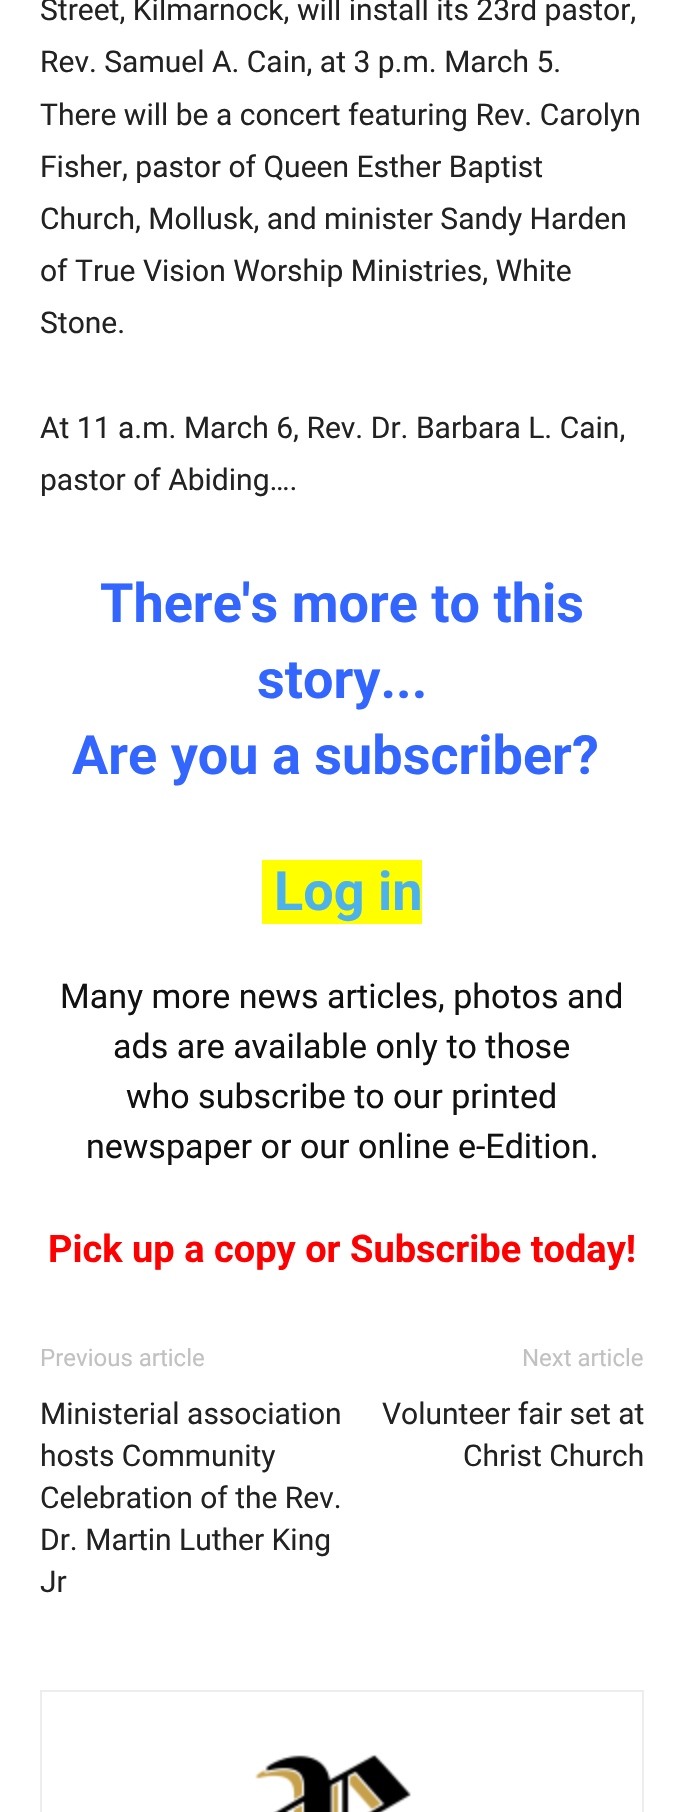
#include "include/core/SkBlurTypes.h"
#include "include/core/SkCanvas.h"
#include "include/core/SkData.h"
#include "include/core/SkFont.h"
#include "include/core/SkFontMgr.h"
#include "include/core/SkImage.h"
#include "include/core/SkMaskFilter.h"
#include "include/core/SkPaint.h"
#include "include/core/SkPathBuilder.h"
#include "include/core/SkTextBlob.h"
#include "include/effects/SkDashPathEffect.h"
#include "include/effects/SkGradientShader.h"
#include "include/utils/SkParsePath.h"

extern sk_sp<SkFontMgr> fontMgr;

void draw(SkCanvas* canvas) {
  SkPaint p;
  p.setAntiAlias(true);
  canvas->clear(SK_ColorWHITE);
  p.setColor(SkColorSetRGB(255, 255, 0));
  canvas->drawRect(SkRect::MakeLTRB(262, 860, 422, 924), p);
  p.setStyle(SkPaint::kStroke_Style);
  p.setStrokeWidth(2);
  p.setColor(SkColorSetRGB(237, 237, 237));
  canvas->drawRect(SkRect::MakeLTRB(41, 1691, 643, 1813), p);
  canvas->drawImageRect(SkImages::DeferredFromEncodedData(SkData::MakeFromFileName("images/1.png")), SkRect::MakeLTRB(255, 1754, 411, 1812), SkSamplingOptions());
  SkFont font1(fontMgr->matchFamilyStyle("Roboto", SkFontStyle::Normal()), 30);
  font1.setSubpixel(true);
  p.setStyle(SkPaint::kFill_Style);
  p.setColor(SkColorSetRGB(34, 34, 34));
  canvas->drawString("Street, Kilmarnock, will install its 23rd pastor,", 40, 20, font1, p);
  canvas->drawString("Rev. Samuel A. Cain, at 3 p.m. March 5.", 40, 72, font1, p);
  canvas->drawString("There will be a concert featuring Rev. Carolyn", 40, 125, font1, p);
  canvas->drawString("Fisher, pastor of Queen Esther Baptist", 40, 177, font1, p);
  canvas->drawString("Church, Mollusk, and minister Sandy Harden", 40, 229, font1, p);
  canvas->drawString("of True Vision Worship Ministries, White", 40, 281, font1, p);
  canvas->drawString("Stone.", 40, 333, font1, p);
  canvas->drawString("At 11 a.m. March 6, Rev. Dr. Barbara L. Cain,", 40, 438, font1, p);
  canvas->drawString("pastor of Abiding….", 40, 490, font1, p);
  SkFont font2(fontMgr->matchFamilyStyle("Roboto", SkFontStyle::Bold()), 54);
  font2.setSubpixel(true);
  p.setColor(SkColorSetRGB(51, 102, 255));
  canvas->drawString("There's more to this", 100, 622, font2, p);
  canvas->drawString("story...", 257, 698, font2, p);
  canvas->drawString("Are you a subscriber?", 72, 774, font2, p);
  p.setColor(SkColorSetRGB(77, 178, 236));
  canvas->drawString("Log in", 274, 910, font2, p);
  SkFont font3(fontMgr->matchFamilyStyle("Roboto", SkFontStyle::Normal()), 34);
  font3.setSubpixel(true);
  p.setColor(SkColorSetRGB(17, 17, 17));
  canvas->drawString("Many more news articles, photos and", 60, 1008, font3, p);
  canvas->drawString("ads are available only to those", 113, 1058, font3, p);
  canvas->drawString("who subscribe to our printed", 126, 1108, font3, p);
  canvas->drawString("newspaper or our online e-Edition.", 86, 1158, font3, p);
  SkFont font4(fontMgr->matchFamilyStyle("Roboto", SkFontStyle::Bold()), 38);
  font4.setSubpixel(true);
  p.setColor(SkColorSetRGB(255, 0, 0));
  canvas->drawString("Pick up a copy or Subscribe today!", 48, 1262, font4, p);
  SkFont font5(fontMgr->matchFamilyStyle("Roboto", SkFontStyle::Normal()), 24);
  font5.setSubpixel(true);
  p.setColor(SkColorSetRGB(193, 193, 193));
  canvas->drawString("Previous article", 40, 1366, font5, p);
  p.setColor(SkColorSetRGB(34, 34, 34));
  canvas->drawString("Ministerial association", 40, 1424, font1, p);
  canvas->drawString("hosts Community", 40, 1466, font1, p);
  canvas->drawString("Celebration of the Rev.", 40, 1508, font1, p);
  canvas->drawString("Dr. Martin Luther King", 40, 1550, font1, p);
  canvas->drawString("Jr", 40, 1592, font1, p);
  p.setColor(SkColorSetRGB(193, 193, 193));
  canvas->drawString("Next article", 522, 1366, font5, p);
  p.setColor(SkColorSetRGB(34, 34, 34));
  canvas->drawString("Volunteer fair set at", 382, 1424, font1, p);
  canvas->drawString("Christ Church", 463, 1466, font1, p);
}
